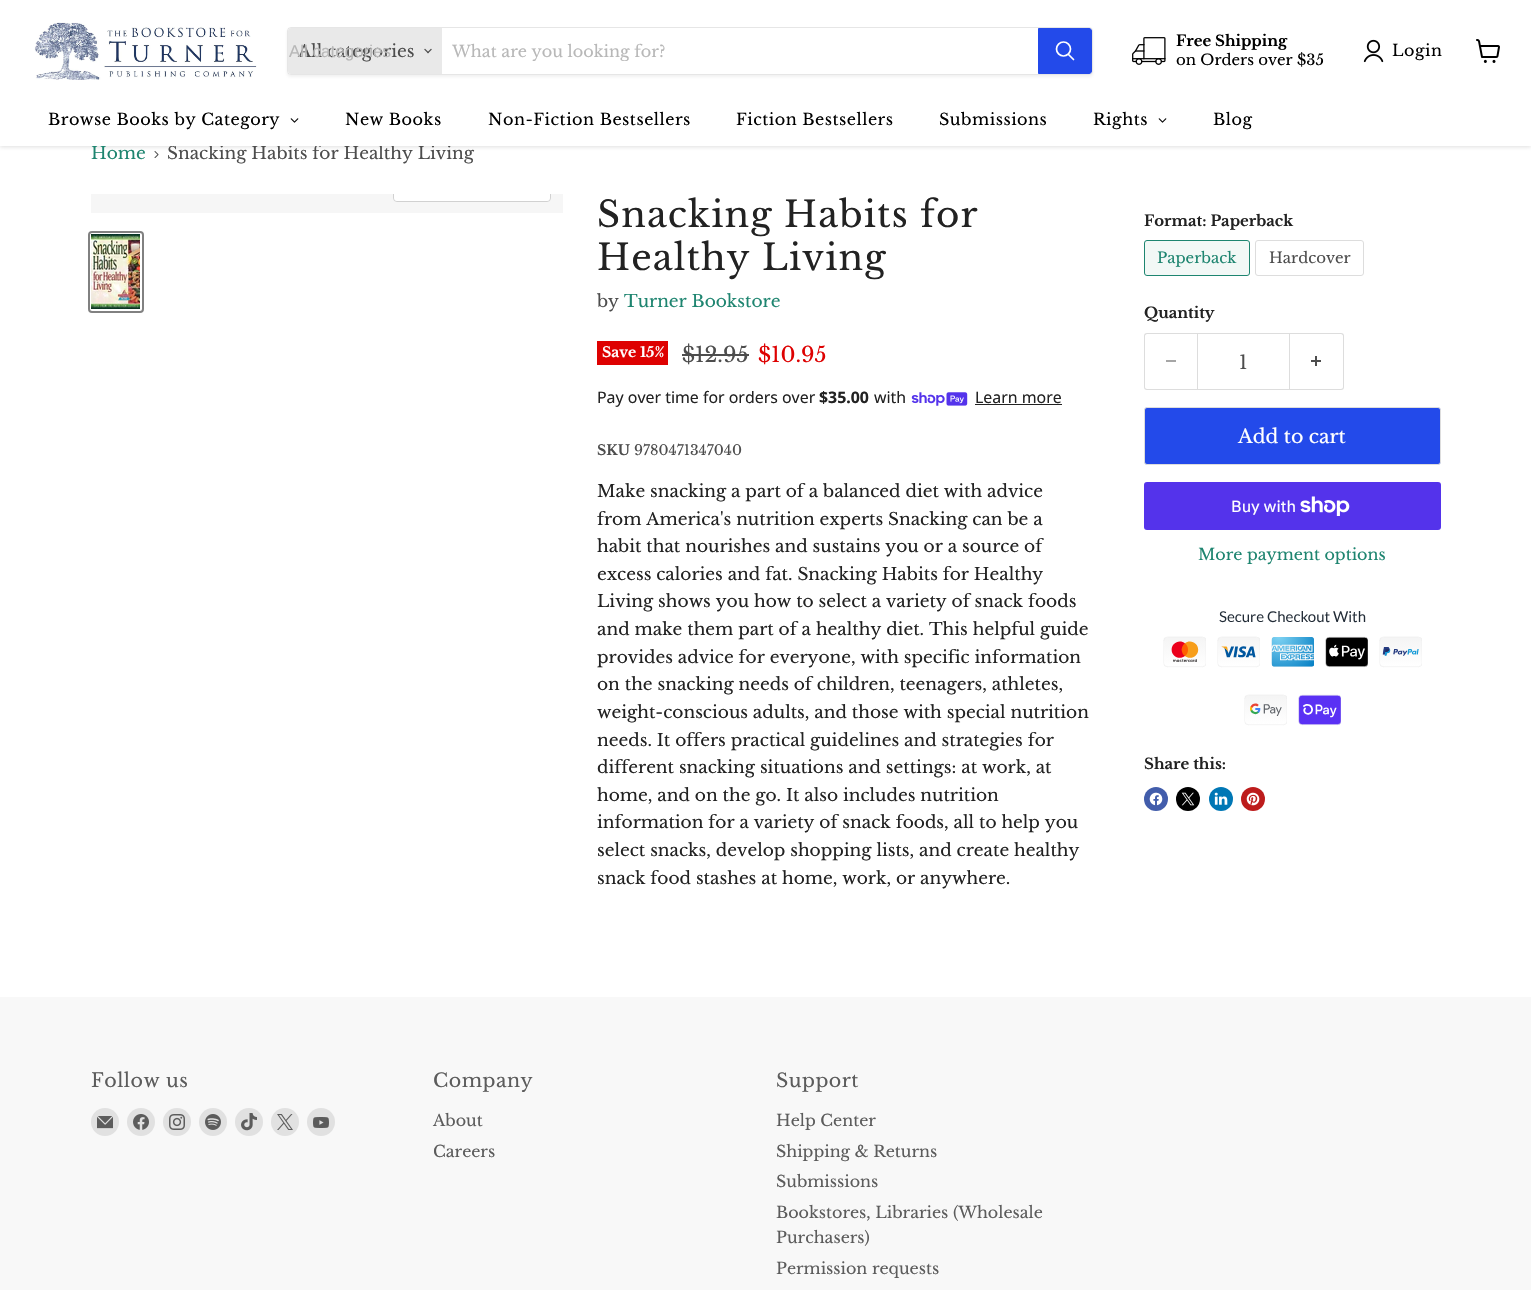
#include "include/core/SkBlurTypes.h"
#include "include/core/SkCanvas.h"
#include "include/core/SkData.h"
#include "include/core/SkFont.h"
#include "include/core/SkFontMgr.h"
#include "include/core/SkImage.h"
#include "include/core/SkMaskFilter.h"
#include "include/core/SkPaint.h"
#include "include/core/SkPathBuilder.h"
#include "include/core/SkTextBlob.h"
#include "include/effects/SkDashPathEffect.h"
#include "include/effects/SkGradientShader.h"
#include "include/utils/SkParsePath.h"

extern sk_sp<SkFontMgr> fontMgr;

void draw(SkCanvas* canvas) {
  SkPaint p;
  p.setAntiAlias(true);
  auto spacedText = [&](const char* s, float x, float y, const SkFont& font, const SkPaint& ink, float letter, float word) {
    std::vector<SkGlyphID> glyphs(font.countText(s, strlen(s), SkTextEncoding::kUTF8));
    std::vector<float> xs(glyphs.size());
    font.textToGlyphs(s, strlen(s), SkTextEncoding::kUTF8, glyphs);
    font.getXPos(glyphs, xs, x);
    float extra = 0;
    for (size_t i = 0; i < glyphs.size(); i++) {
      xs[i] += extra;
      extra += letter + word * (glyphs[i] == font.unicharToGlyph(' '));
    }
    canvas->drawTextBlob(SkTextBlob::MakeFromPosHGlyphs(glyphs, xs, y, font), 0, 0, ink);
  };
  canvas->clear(SK_ColorWHITE);
  canvas->drawImageRect(SkImages::DeferredFromEncodedData(SkData::MakeFromFileName("images/7.png")), SkRect::MakeLTRB(154, 151, 159, 158), SkSamplingOptions());
  p.setColor(SkColorSetARGB(64, 128, 128, 128));
  p.setMaskFilter(SkMaskFilter::MakeBlur(kNormal_SkBlurStyle, 2));
  canvas->drawRect(SkRect::MakeLTRB(0, 1, 1531, 147), p);
  p.setMaskFilter(nullptr);
  p.setColor(SkColorSetRGB(246, 246, 246));
  canvas->drawRect(SkRect::MakeLTRB(91, 194, 563, 213), p);
  canvas->save();
  canvas->clipRect(SkRect::MakeLTRB(91, 194, 563, 213));
  p.setStyle(SkPaint::kStroke_Style);
  p.setStrokeWidth(1);
  p.setColor(SkColorSetRGB(209, 209, 209));
  canvas->drawRoundRect(SkRect::MakeLTRB(393.5f, 170.5f, 550.5f, 201.5f), 3.5f, 3.5f, p);
  canvas->restore();
  p.setStyle(SkPaint::kFill_Style);
  p.setColor(SkColorSetARGB(230, 255, 255, 255));
  canvas->drawPath(SkPathBuilder().moveTo(394, 194).lineTo(550, 194).lineTo(550, 198).cubicTo(550, 199.5f, 548.5f, 201, 547, 201).lineTo(397, 201).cubicTo(395.5f, 201, 394, 199.5f, 394, 198).close().detach(), p);
  p.setStyle(SkPaint::kStroke_Style);
  p.setStrokeWidth(2);
  p.setColor(SkColorSetRGB(129, 129, 129));
  canvas->drawRoundRect(SkRect::MakeLTRB(89, 232, 143, 312), 3, 3, p);
  canvas->drawImageRect(SkImages::DeferredFromEncodedData(SkData::MakeFromFileName("images/8.png")), SkRect::MakeLTRB(91, 234, 140, 309), SkSamplingOptions());
  p.setStyle(SkPaint::kFill_Style);
  p.setColor(SkColorSetRGB(222, 1, 1));
  canvas->drawRect(SkRect::MakeLTRB(597, 341, 668, 365), p);
  p.setColor(SkColorSetRGB(77, 77, 77));
  canvas->drawRect(SkRect::MakeLTRB(682, 354, 749, 356), p);
  canvas->drawImageRect(SkImages::DeferredFromEncodedData(SkData::MakeFromFileName("images/9.png")), SkRect::MakeLTRB(911, 392, 968, 406), SkSamplingOptions());
  p.setColor(SkColorSetRGB(34, 34, 34));
  canvas->drawRect(SkRect::MakeLTRB(975, 404, 1062, 405), p);
  p.setColor(SkColorSetRGB(242, 248, 246));
  canvas->drawRoundRect(SkRect::MakeLTRB(1144.5f, 240.5f, 1249.5f, 275.5f), 2.5f, 2.5f, p);
  p.setStyle(SkPaint::kStroke_Style);
  p.setStrokeWidth(1);
  p.setColor(SkColorSetRGB(30, 133, 112));
  canvas->drawRoundRect(SkRect::MakeLTRB(1144.5f, 240.5f, 1249.5f, 275.5f), 2.5f, 2.5f, p);
  p.setColor(SkColorSetRGB(221, 221, 221));
  canvas->drawRoundRect(SkRect::MakeLTRB(1255.5f, 240.5f, 1363.5f, 275.5f), 2.5f, 2.5f, p);
  p.setStyle(SkPaint::kFill_Style);
  canvas->drawPath(SkPathBuilder(SkPathFillType::kEvenOdd).moveTo(1147, 333).lineTo(1197, 333).lineTo(1197, 390).lineTo(1147, 390).cubicTo(1145, 390, 1144, 389, 1144, 387).lineTo(1144, 336).cubicTo(1144, 334, 1145, 333, 1147, 333).close().moveTo(1147, 334).lineTo(1197, 334).lineTo(1197, 389).lineTo(1147, 389).cubicTo(1146, 389, 1145, 388, 1145, 387).lineTo(1145, 336).cubicTo(1145, 335, 1146, 334, 1147, 334).close().detach(), p);
  p.setColor(SkColorSetRGB(166, 166, 166));
  canvas->drawRect(SkRect::MakeLTRB(1166, 360, 1176, 362), p);
  p.setStyle(SkPaint::kStroke_Style);
  p.setColor(SkColorSetRGB(221, 221, 221));
  canvas->drawRect(SkRect::MakeLTRB(1197.5f, 333.5f, 1289.5f, 389.5f), p);
  p.setStyle(SkPaint::kFill_Style);
  canvas->drawPath(SkPathBuilder(SkPathFillType::kEvenOdd).moveTo(1290, 333).lineTo(1341, 333).cubicTo(1343, 333, 1344, 334, 1344, 336).lineTo(1344, 387).cubicTo(1344, 389, 1343, 390, 1341, 390).lineTo(1290, 390).close().moveTo(1290, 334).lineTo(1341, 334).cubicTo(1342, 334, 1343, 335, 1343, 336).lineTo(1343, 387).cubicTo(1343, 388, 1342, 389, 1341, 389).lineTo(1290, 389).close().detach(), p);
  canvas->drawImageRect(SkImages::DeferredFromEncodedData(SkData::MakeFromFileName("images/10.png")), SkRect::MakeLTRB(1311, 356, 1321, 366), SkSamplingOptions());
  p.setColor(SkColorSetRGB(35, 74, 234));
  canvas->drawRoundRect(SkRect::MakeLTRB(1144.5f, 407.5f, 1440.5f, 464.5f), 2.5f, 2.5f, p);
  p.setStyle(SkPaint::kStroke_Style);
  p.setColor(SkColorSetRGB(221, 221, 221));
  canvas->drawRoundRect(SkRect::MakeLTRB(1144.5f, 407.5f, 1440.5f, 464.5f), 2.5f, 2.5f, p);
  p.setStyle(SkPaint::kFill_Style);
  p.setColor(SkColorSetRGB(84, 51, 235));
  canvas->drawRoundRect(SkRect::MakeLTRB(1144, 482, 1441, 530), 3, 3, p);
  canvas->drawImageRect(SkImages::DeferredFromEncodedData(SkData::MakeFromFileName("images/11.png")), SkRect::MakeLTRB(1300, 496, 1350, 516), SkSamplingOptions());
  canvas->drawImageRect(SkImages::DeferredFromEncodedData(SkData::MakeFromFileName("images/12.png")), SkRect::MakeLTRB(1163, 611, 1422, 726), SkSamplingOptions());
  p.setColor(SkColorSetRGB(66, 93, 171));
  canvas->drawCircle(1156, 799, 12, p);
  canvas->drawImageRect(SkImages::DeferredFromEncodedData(SkData::MakeFromFileName("images/13.png")), SkRect::MakeLTRB(1149, 792, 1163, 806), SkSamplingOptions());
  p.setColor(SK_ColorBLACK);
  canvas->drawCircle(1188, 799, 12, p);
  canvas->drawImageRect(SkImages::DeferredFromEncodedData(SkData::MakeFromFileName("images/14.png")), SkRect::MakeLTRB(1181, 792, 1195, 806), SkSamplingOptions());
  p.setColor(SkColorSetRGB(0, 119, 181));
  canvas->drawCircle(1221, 799, 12, p);
  canvas->drawImageRect(SkImages::DeferredFromEncodedData(SkData::MakeFromFileName("images/15.png")), SkRect::MakeLTRB(1214, 792, 1228, 805), SkSamplingOptions());
  p.setColor(SkColorSetRGB(189, 28, 28));
  canvas->drawCircle(1253, 799, 12, p);
  canvas->drawImageRect(SkImages::DeferredFromEncodedData(SkData::MakeFromFileName("images/16.png")), SkRect::MakeLTRB(1246, 792, 1260, 806), SkSamplingOptions());
  p.setColor(SkColorSetRGB(248, 248, 248));
  canvas->drawRect(SkRect::MakeLTRB(0, 997, 1531, 1290), p);
  p.setColor(SkColorSetRGB(225, 225, 225));
  canvas->drawCircle(105, 1122, 14, p);
  canvas->drawImageRect(SkImages::DeferredFromEncodedData(SkData::MakeFromFileName("images/17.png")), SkRect::MakeLTRB(97, 1116, 113, 1129), SkSamplingOptions());
  canvas->drawCircle(141, 1122, 14, p);
  canvas->drawImageRect(SkImages::DeferredFromEncodedData(SkData::MakeFromFileName("images/18.png")), SkRect::MakeLTRB(133, 1114, 149, 1130), SkSamplingOptions());
  canvas->drawCircle(177, 1122, 14, p);
  canvas->drawImageRect(SkImages::DeferredFromEncodedData(SkData::MakeFromFileName("images/19.png")), SkRect::MakeLTRB(169, 1114, 185, 1130), SkSamplingOptions());
  canvas->drawCircle(213, 1122, 14, p);
  canvas->drawImageRect(SkImages::DeferredFromEncodedData(SkData::MakeFromFileName("images/20.png")), SkRect::MakeLTRB(205, 1114, 221, 1130), SkSamplingOptions());
  canvas->drawCircle(249, 1122, 14, p);
  canvas->drawImageRect(SkImages::DeferredFromEncodedData(SkData::MakeFromFileName("images/21.png")), SkRect::MakeLTRB(241, 1113, 257, 1131), SkSamplingOptions());
  canvas->drawCircle(285, 1122, 14, p);
  canvas->drawImageRect(SkImages::DeferredFromEncodedData(SkData::MakeFromFileName("images/22.png")), SkRect::MakeLTRB(277, 1114, 293, 1130), SkSamplingOptions());
  canvas->drawCircle(321, 1122, 14, p);
  canvas->drawImageRect(SkImages::DeferredFromEncodedData(SkData::MakeFromFileName("images/23.png")), SkRect::MakeLTRB(313, 1117, 329, 1128), SkSamplingOptions());
  SkFont font1(fontMgr->matchFamilyStyle("Libre Baskerville", SkFontStyle::Normal()), 17);
  font1.setSubpixel(true);
  p.setColor(SkColorSetRGB(30, 133, 112));
  canvas->drawString("Home", 91, 159, font1, p);
  p.setColor(SkColorSetRGB(77, 77, 77));
  canvas->drawString("Snacking Habits for Healthy Living", 167, 159, font1, p);
  p.setColor(SK_ColorWHITE);
  canvas->drawRect(SkRect::MakeLTRB(0, 0, 1531, 146), p);
  canvas->save();
  canvas->clipPath(SkPathBuilder(SkPathFillType::kEvenOdd).moveTo(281, 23).lineTo(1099, 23).lineTo(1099, 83).lineTo(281, 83).close().moveTo(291, 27).lineTo(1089, 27).cubicTo(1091, 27, 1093, 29, 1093, 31).lineTo(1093, 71).cubicTo(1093, 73, 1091, 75, 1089, 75).lineTo(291, 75).cubicTo(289, 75, 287, 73, 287, 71).lineTo(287, 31).cubicTo(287, 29, 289, 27, 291, 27).close().detach(), true);
  p.setColor(SkColorSetARGB(28, 128, 128, 128));
  p.setMaskFilter(SkMaskFilter::MakeBlur(kNormal_SkBlurStyle, 1.5f));
  canvas->drawRoundRect(SkRect::MakeLTRB(287, 29, 1093, 77), 4, 4, p);
  p.setMaskFilter(nullptr);
  canvas->restore();
  p.setStyle(SkPaint::kStroke_Style);
  p.setColor(SkColorSetARGB(51, 128, 128, 128));
  canvas->drawRoundRect(SkRect::MakeLTRB(287.5f, 27.5f, 1092.5f, 74.5f), 3.5f, 3.5f, p);
  p.setStyle(SkPaint::kFill_Style);
  p.setColor(SkColorSetRGB(233, 233, 233));
  canvas->drawPath(SkPathBuilder().moveTo(291, 28).lineTo(442, 28).lineTo(442, 74).lineTo(291, 74).cubicTo(289.5f, 74, 288, 72.5f, 288, 71).lineTo(288, 31).cubicTo(288, 29.5f, 289.5f, 28, 291, 28).close().detach(), p);
  canvas->drawImageRect(SkImages::DeferredFromEncodedData(SkData::MakeFromFileName("images/2.png")), SkRect::MakeLTRB(424, 48, 432, 54), SkSamplingOptions());
  p.setColor(SkColorSetRGB(77, 77, 77));
  canvas->drawString("All categories", 298, 57, font1, p);
  SkFont font2(fontMgr->matchFamilyStyle("Liberation Sans", SkFontStyle::Normal()), 17);
  font2.setSubpixel(true);
  p.setColor(SkColorSetRGB(184, 184, 184));
  canvas->drawString("All categories", 289, 57, font2, p);
  canvas->save();
  canvas->clipRect(SkRect::MakeLTRB(452, 41, 1028, 61));
  SkFont font3(fontMgr->matchFamilyStyle("Libre Baskerville", SkFontStyle::Normal()), 16);
  font3.setSubpixel(true);
  canvas->drawString("What are you looking for?", 452, 57, font3, p);
  canvas->restore();
  p.setColor(SkColorSetRGB(35, 74, 234));
  canvas->drawPath(SkPathBuilder().moveTo(1038.5f, 28.5f).lineTo(1089, 28.5f).cubicTo(1090.5f, 28.5f, 1091.5f, 29.5f, 1091.5f, 31).lineTo(1091.5f, 71).cubicTo(1091.5f, 72.5f, 1090.5f, 73.5f, 1089, 73.5f).lineTo(1038.5f, 73.5f).close().detach(), p);
  p.setStyle(SkPaint::kStroke_Style);
  canvas->drawPath(SkPathBuilder().moveTo(1038.5f, 28.5f).lineTo(1089, 28.5f).cubicTo(1090.5f, 28.5f, 1091.5f, 29.5f, 1091.5f, 31).lineTo(1091.5f, 71).cubicTo(1091.5f, 72.5f, 1090.5f, 73.5f, 1089, 73.5f).lineTo(1038.5f, 73.5f).close().detach(), p);
  p.setStrokeWidth(1.7f);
  p.setStrokeCap(SkPaint::kRound_Cap);
  p.setColor(SK_ColorWHITE);
  canvas->drawPath(SkPathBuilder().moveTo(1073.5f, 59.5f).lineTo(1068.5f, 54.5f).detach(), p);
  p.setStrokeCap(SkPaint::kButt_Cap);
  canvas->drawCircle(1063.5f, 49, 7, p);
  canvas->drawImageRect(SkImages::DeferredFromEncodedData(SkData::MakeFromFileName("images/5.png")), SkRect::MakeLTRB(1476, 39, 1500, 63), SkSamplingOptions());
  canvas->drawImageRect(SkImages::DeferredFromEncodedData(SkData::MakeFromFileName("images/3.png")), SkRect::MakeLTRB(1132, 37, 1166, 65), SkSamplingOptions());
  SkFont font4(fontMgr->matchFamilyStyle("Libre Baskerville", SkFontStyle::Normal()), 14.9f);
  font4.setSubpixel(true);
  p.setStyle(SkPaint::kFill_Style);
  p.setColor(SK_ColorBLACK);
  canvas->drawString("on Orders over $35", 1176, 65, font4, p);
  SkFont font5(fontMgr->matchFamilyStyle("Libre Baskerville", SkFontStyle::Bold()), 14.9f);
  font5.setSubpixel(true);
  canvas->drawString("Free Shipping", 1176, 46, font5, p);
  canvas->drawImageRect(SkImages::DeferredFromEncodedData(SkData::MakeFromFileName("images/4.png")), SkRect::MakeLTRB(1363, 39, 1384, 63), SkSamplingOptions());
  SkFont font6(fontMgr->matchFamilyStyle("Libre Baskerville", SkFontStyle::Normal()), 15.9f);
  font6.setSubpixel(true);
  spacedText("Login", 1392, 56, font6, p, 0.5f, 0);
  canvas->drawImageRect(SkImages::DeferredFromEncodedData(SkData::MakeFromFileName("images/1.png")), SkRect::MakeLTRB(34, 22, 257, 80), SkSamplingOptions());
  spacedText("Blog", 1213, 125, font3, p, 0.5f, 0);
  canvas->drawImageRect(SkImages::DeferredFromEncodedData(SkData::MakeFromFileName("images/6.png")), SkRect::MakeLTRB(1158, 118, 1167, 123), SkSamplingOptions());
  spacedText("Rights", 1093, 125, font3, p, 0.5f, 0);
  spacedText("Submissions", 939, 125, font3, p, 0.5f, 0);
  spacedText("Fiction Bestsellers", 736, 125, font3, p, 0.5f, 0);
  spacedText("Non-Fiction Bestsellers", 488, 125, font3, p, 0.5f, 0);
  spacedText("New Books", 345, 125, font3, p, 0.5f, 0);
  canvas->drawImageRect(SkImages::DeferredFromEncodedData(SkData::MakeFromFileName("images/6.png")), SkRect::MakeLTRB(290, 118, 299, 123), SkSamplingOptions());
  spacedText("Browse Books by Category", 48, 125, font3, p, 0.5f, 0);
  SkFont font7(fontMgr->matchFamilyStyle("Libre Baskerville", SkFontStyle::Normal()), 35.75f);
  font7.setSubpixel(true);
  p.setColor(SkColorSetRGB(34, 34, 34));
  spacedText("Snacking Habits for", 597, 227, font7, p, 1.1f, 0);
  spacedText("Healthy Living", 597, 270, font7, p, 1.1f, 0);
  p.setColor(SkColorSetRGB(77, 77, 77));
  canvas->drawString("by", 597, 307, font1, p);
  p.setColor(SkColorSetRGB(30, 133, 112));
  canvas->drawString("Turner Bookstore", 624, 307, font1, p);
  SkFont font8(fontMgr->matchFamilyStyle("Libre Baskerville", SkFontStyle::Bold()), 14);
  font8.setSubpixel(true);
  p.setColor(SK_ColorWHITE);
  canvas->drawString("Save 15%", 602, 357, font8, p);
  SkFont font9(fontMgr->matchFamilyStyle("Libre Baskerville", SkFontStyle::Normal()), 21);
  font9.setSubpixel(true);
  p.setColor(SkColorSetRGB(77, 77, 77));
  canvas->drawString("$12.95", 682, 362, font9, p);
  p.setColor(SkColorSetRGB(222, 1, 1));
  canvas->drawString("$10.95", 758, 362, font9, p);
  SkFont font10(fontMgr->matchFamilyStyle("Noto Sans", SkFontStyle::Normal()), 15.9f);
  font10.setSubpixel(true);
  p.setColor(SkColorSetRGB(34, 34, 34));
  canvas->drawString("Pay over time for orders over", 597, 403, font10, p);
  SkFont font11(fontMgr->matchFamilyStyle("Noto Sans", SkFontStyle::Bold()), 15.9f);
  font11.setSubpixel(true);
  canvas->drawString("$35.00", 819, 403, font11, p);
  canvas->drawString("with", 874, 403, font10, p);
  canvas->drawString("Learn more", 975, 403, font10, p);
  p.setColor(SkColorSetRGB(77, 77, 77));
  canvas->drawString("SKU", 597, 455, font8, p);
  SkFont font12(fontMgr->matchFamilyStyle("Libre Baskerville", SkFontStyle::Normal()), 14);
  font12.setSubpixel(true);
  canvas->drawString("9780471347040", 634, 455, font12, p);
  p.setColor(SkColorSetRGB(34, 34, 34));
  canvas->drawString("Make snacking a part of a balanced diet with advice", 597, 497, font1, p);
  canvas->drawString("from America's nutrition experts Snacking can be a", 597, 525, font1, p);
  canvas->drawString("habit that nourishes and sustains you or a source of", 597, 552, font1, p);
  canvas->drawString("excess calories and fat. Snacking Habits for Healthy", 597, 580, font1, p);
  canvas->drawString("Living shows you how to select a variety of snack foods", 597, 607, font1, p);
  canvas->drawString("and make them part of a healthy diet. This helpful guide", 597, 635, font1, p);
  canvas->drawString("provides advice for everyone, with specific information", 597, 663, font1, p);
  canvas->drawString("on the snacking needs of children, teenagers, athletes,", 597, 690, font1, p);
  canvas->drawString("weight-conscious adults, and those with special nutrition", 597, 718, font1, p);
  canvas->drawString("needs. It offers practical guidelines and strategies for", 597, 746, font1, p);
  canvas->drawString("different snacking situations and settings: at work, at", 597, 773, font1, p);
  canvas->drawString("home, and on the go. It also includes nutrition", 597, 801, font1, p);
  canvas->drawString("information for a variety of snack foods, all to help you", 597, 828, font1, p);
  canvas->drawString("select snacks, develop shopping lists, and create healthy", 597, 856, font1, p);
  canvas->drawString("snack food stashes at home, work, or anywhere.", 597, 884, font1, p);
  canvas->drawString("Format: Paperback", 1144, 226, font5, p);
  p.setColor(SkColorSetRGB(30, 133, 112));
  canvas->drawString("Paperback", 1157, 263, font4, p);
  p.setColor(SkColorSetRGB(77, 77, 77));
  canvas->drawString("Hardcover", 1269, 263, font4, p);
  p.setColor(SkColorSetRGB(34, 34, 34));
  canvas->drawString("Quantity", 1144, 318, font5, p);
  SkFont font13(fontMgr->matchFamilyStyle("Libre Baskerville", SkFontStyle::Normal()), 19);
  font13.setSubpixel(true);
  p.setColor(SkColorSetRGB(77, 77, 77));
  canvas->drawString("1", 1239, 369, font13, p);
  p.setColor(SK_ColorWHITE);
  canvas->drawString("Add to cart", 1238, 443, font13, p);
  SkFont font14(fontMgr->matchFamilyStyle("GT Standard", SkFontStyle::Normal()), 16);
  font14.setSubpixel(true);
  canvas->drawString("Buy with", 1231, 512, font14, p);
  p.setColor(SkColorSetRGB(30, 133, 112));
  canvas->drawString("More payment options", 1198, 560, font6, p);
  p.setColor(SkColorSetRGB(34, 34, 34));
  canvas->drawString("Share this:", 1144, 769, font5, p);
  p.setColor(SkColorSetRGB(92, 92, 92));
  spacedText("Follow us", 91, 1087, font13, p, 0.5f, 0);
  spacedText("Company", 433, 1087, font13, p, 0.5f, 0);
  canvas->drawString("About", 433, 1126, font6, p);
  canvas->drawString("Careers", 433, 1157, font6, p);
  spacedText("Support", 776, 1087, font13, p, 0.5f, 0);
  canvas->drawString("Help Center", 776, 1126, font6, p);
  canvas->drawString("Shipping & Returns", 776, 1157, font6, p);
  canvas->drawString("Submissions", 776, 1187, font6, p);
  canvas->drawString("Bookstores, Libraries (Wholesale", 776, 1218, font6, p);
  canvas->drawString("Purchasers)", 776, 1243, font6, p);
  canvas->drawString("Permission requests", 776, 1274, font6, p);
}
